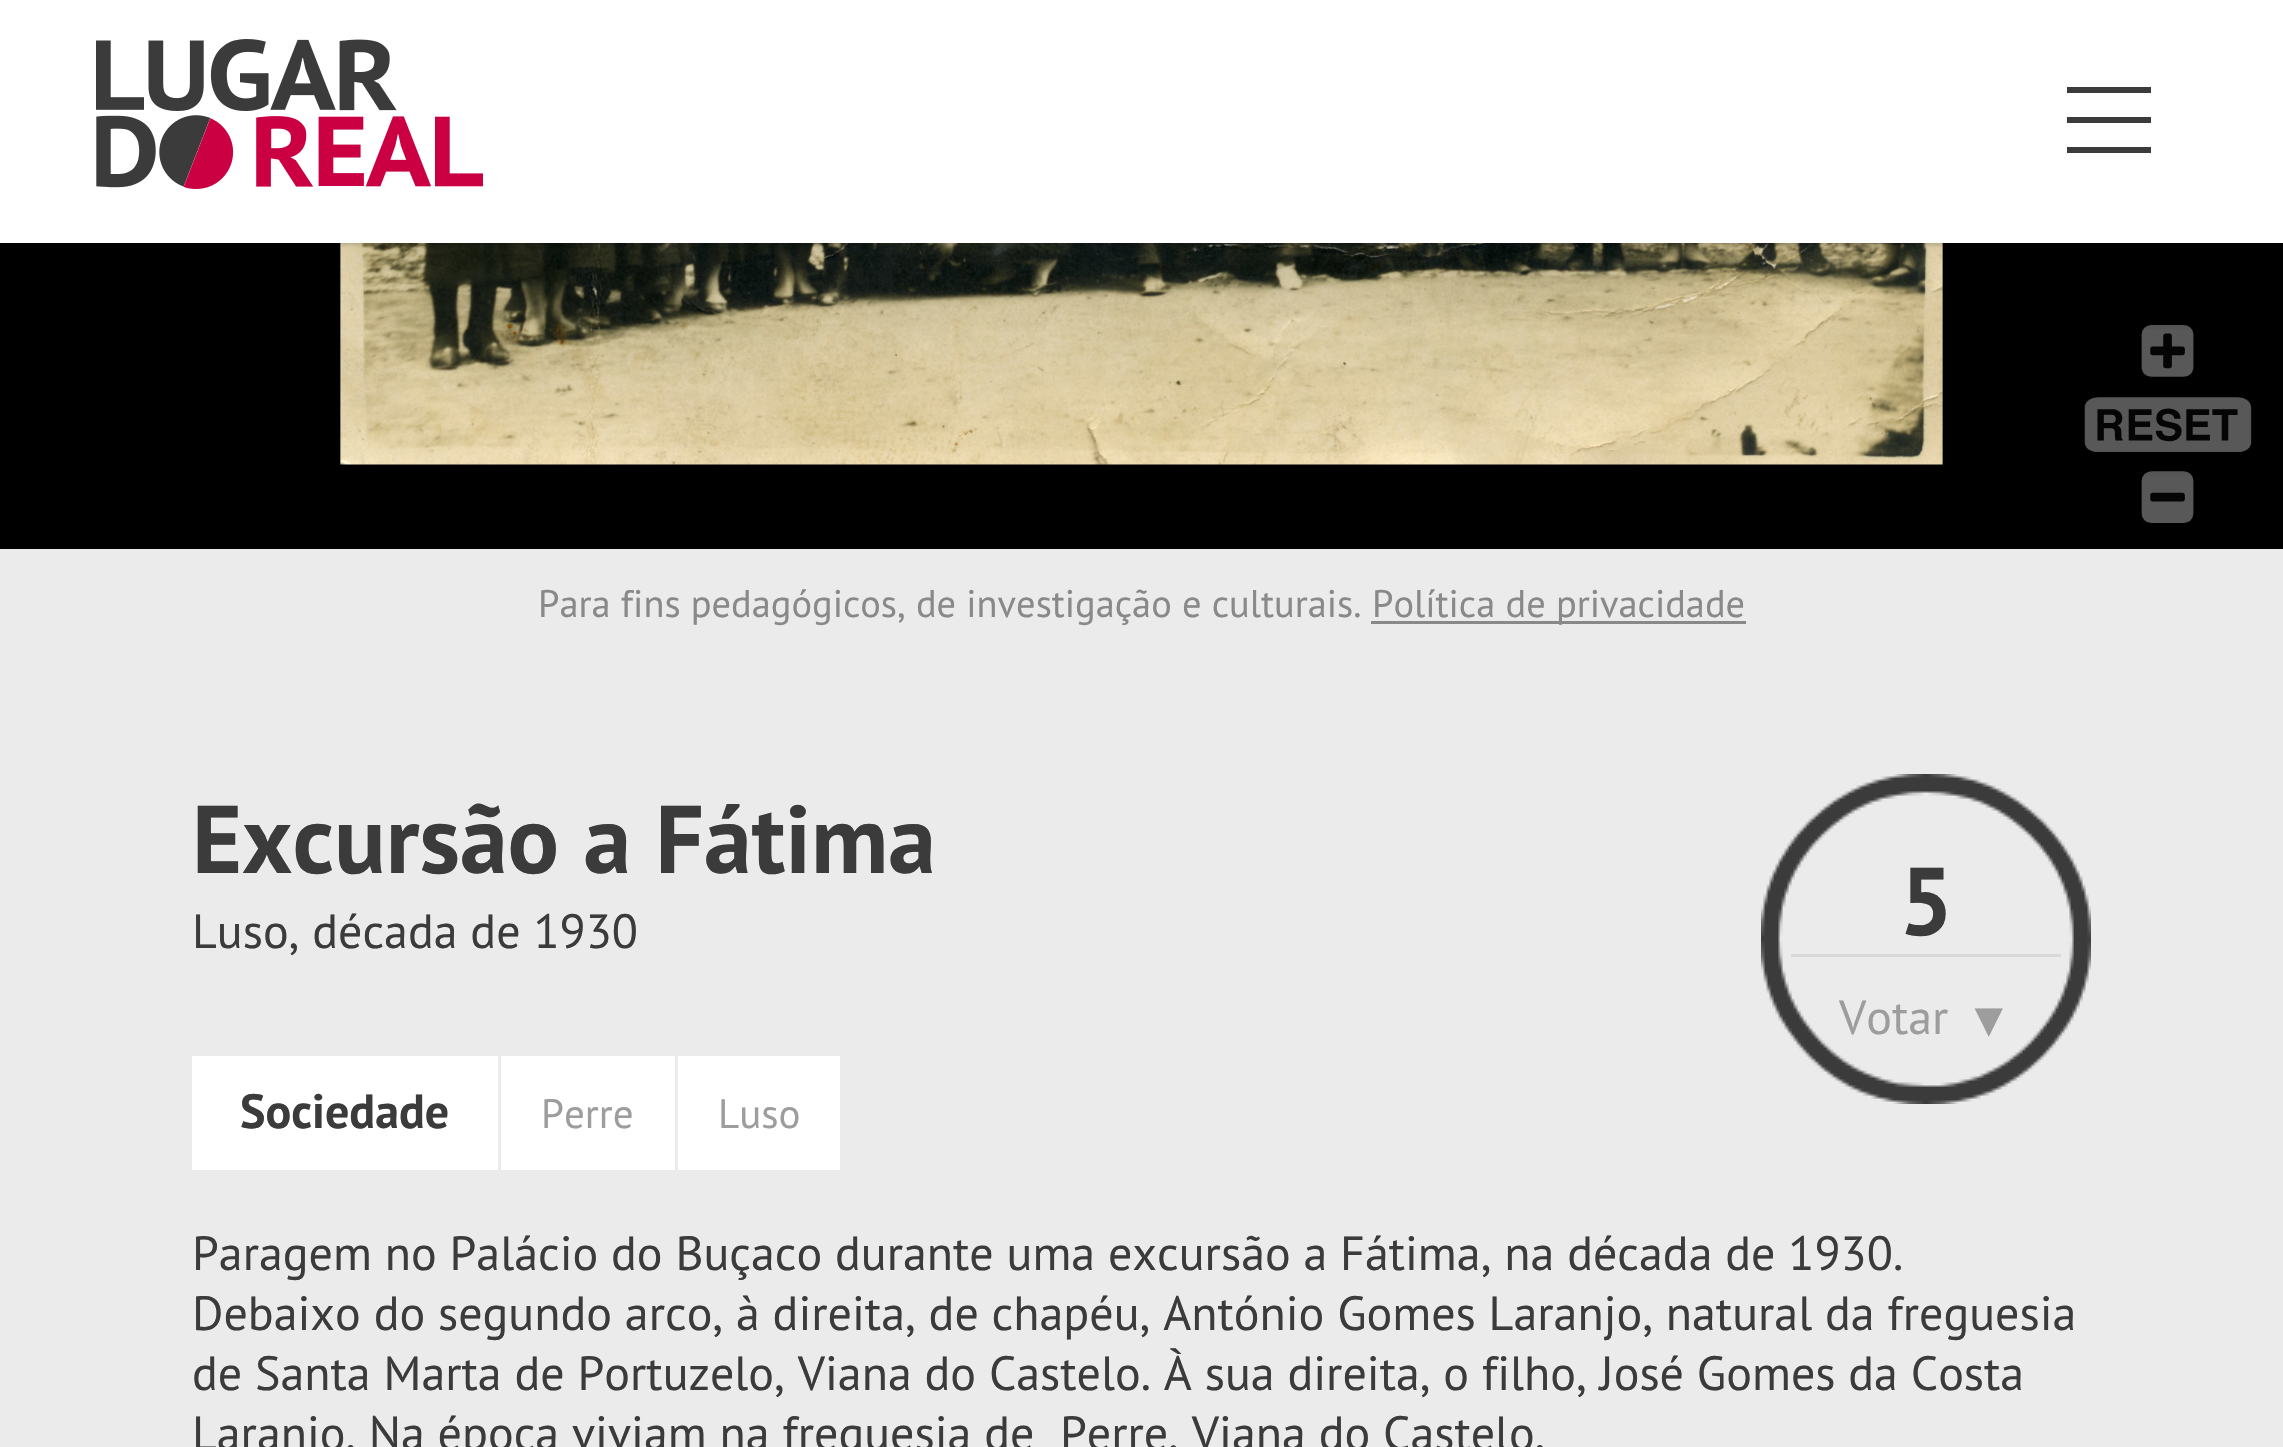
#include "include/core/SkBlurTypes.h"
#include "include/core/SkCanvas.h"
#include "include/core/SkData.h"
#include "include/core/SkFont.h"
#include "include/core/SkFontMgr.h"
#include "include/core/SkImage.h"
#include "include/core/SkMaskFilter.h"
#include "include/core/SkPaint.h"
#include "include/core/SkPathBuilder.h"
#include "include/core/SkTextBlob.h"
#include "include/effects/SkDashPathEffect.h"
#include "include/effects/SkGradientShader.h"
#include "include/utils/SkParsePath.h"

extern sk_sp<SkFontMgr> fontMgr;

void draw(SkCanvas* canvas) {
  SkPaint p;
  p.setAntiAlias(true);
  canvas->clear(SkColorSetRGB(235, 235, 235));
  p.setColor(SK_ColorBLACK);
  canvas->drawRect(SkRect::MakeLTRB(0, 243, 2283, 549), p);
  canvas->drawImageRect(SkImages::DeferredFromEncodedData(SkData::MakeFromFileName("images/2.png")), SkRect::MakeLTRB(340, 243, 2252, 523), SkSamplingOptions());
  p.setColor(SkColorSetARGB(77, 0, 0, 0));
  p.setMaskFilter(SkMaskFilter::MakeBlur(kNormal_SkBlurStyle, 3));
  canvas->drawRect(SkRect::MakeLTRB(0, 0, 2283, 243), p);
  p.setMaskFilter(nullptr);
  p.setColor(SK_ColorWHITE);
  canvas->drawRect(SkRect::MakeLTRB(0, 0, 2283, 243), p);
  canvas->drawImageRect(SkImages::DeferredFromEncodedData(SkData::MakeFromFileName("images/1.png")), SkRect::MakeLTRB(96, 39, 483, 189), SkSamplingOptions());
  p.setColor(SkColorSetRGB(59, 59, 59));
  canvas->drawRect(SkRect::MakeLTRB(2067, 87, 2151, 93), p);
  canvas->drawRect(SkRect::MakeLTRB(2067, 117, 2151, 123), p);
  canvas->drawRect(SkRect::MakeLTRB(2067, 147, 2151, 153), p);
  p.setColor(SkColorSetRGB(137, 137, 137));
  canvas->drawRect(SkRect::MakeLTRB(1371, 621, 1746, 624), p);
  canvas->drawImageRect(SkImages::DeferredFromEncodedData(SkData::MakeFromFileName("images/3.png")), SkRect::MakeLTRB(1761, 774, 2091, 1104), SkSamplingOptions());
  p.setColor(SkColorSetRGB(216, 216, 216));
  canvas->drawRect(SkRect::MakeLTRB(1791, 954, 2061, 957), p);
  p.setColor(SK_ColorWHITE);
  canvas->drawRect(SkRect::MakeLTRB(192, 1056, 498, 1170), p);
  canvas->drawRect(SkRect::MakeLTRB(501, 1056, 675, 1170), p);
  canvas->drawRect(SkRect::MakeLTRB(678, 1056, 840, 1170), p);
  SkFont font1(fontMgr->matchFamilyStyle("PT Sans", SkFontStyle::Normal()), 38.4f);
  font1.setSubpixel(true);
  p.setColor(SkColorSetRGB(137, 137, 137));
  canvas->drawString("Para fins pedagógicos, de investigação e culturais.", 538, 617, font1, p);
  canvas->drawString("Política de privacidade", 1372, 617, font1, p);
  SkFont font2(fontMgr->matchFamilyStyle("PT Sans", SkFontStyle::Bold()), 96);
  font2.setSubpixel(true);
  p.setColor(SkColorSetRGB(59, 59, 59));
  canvas->drawString("Excursão a Fátima", 192, 873, font2, p);
  SkFont font3(fontMgr->matchFamilyStyle("PT Sans", SkFontStyle::Normal()), 48);
  font3.setSubpixel(true);
  canvas->drawString("Luso, década de 1930", 192, 948, font3, p);
  canvas->drawString("5", 1899, 935, font2, p);
  p.setColor(SkColorSetRGB(157, 157, 157));
  canvas->drawString("Votar", 1839, 1034, font3, p);
  SkFont font4(fontMgr->matchFamilyStyle("Liberation Sans", SkFontStyle::Normal()), 48);
  font4.setSubpixel(true);
  canvas->drawString("▼", 1965, 1036, font4, p);
  SkFont font5(fontMgr->matchFamilyStyle("PT Sans", SkFontStyle::Bold()), 48);
  font5.setSubpixel(true);
  p.setColor(SkColorSetRGB(59, 59, 59));
  canvas->drawString("Sociedade", 240, 1128, font5, p);
  SkFont font6(fontMgr->matchFamilyStyle("PT Sans", SkFontStyle::Normal()), 41);
  font6.setSubpixel(true);
  p.setColor(SkColorSetRGB(157, 157, 157));
  canvas->drawString("Perre", 541, 1128, font6, p);
  canvas->drawString("Luso", 718, 1128, font6, p);
  p.setColor(SkColorSetRGB(59, 59, 59));
  canvas->drawString("Paragem no Palácio do Buçaco durante uma excursão a Fátima, na década de 1930.", 192, 1270, font3, p);
  canvas->drawString("Debaixo do segundo arco, à direita, de chapéu, António Gomes Laranjo, natural da freguesia", 192, 1330, font3, p);
  canvas->drawString("de Santa Marta de Portuzelo, Viana do Castelo. À sua direita, o filho, José Gomes da Costa", 192, 1390, font3, p);
  canvas->drawString("Laranjo. Na época viviam na freguesia de  Perre, Viana do Castelo.", 192, 1450, font3, p);
}
